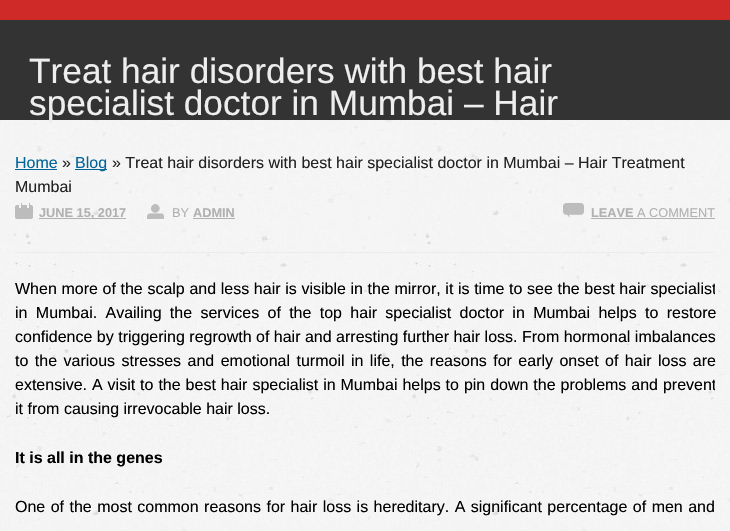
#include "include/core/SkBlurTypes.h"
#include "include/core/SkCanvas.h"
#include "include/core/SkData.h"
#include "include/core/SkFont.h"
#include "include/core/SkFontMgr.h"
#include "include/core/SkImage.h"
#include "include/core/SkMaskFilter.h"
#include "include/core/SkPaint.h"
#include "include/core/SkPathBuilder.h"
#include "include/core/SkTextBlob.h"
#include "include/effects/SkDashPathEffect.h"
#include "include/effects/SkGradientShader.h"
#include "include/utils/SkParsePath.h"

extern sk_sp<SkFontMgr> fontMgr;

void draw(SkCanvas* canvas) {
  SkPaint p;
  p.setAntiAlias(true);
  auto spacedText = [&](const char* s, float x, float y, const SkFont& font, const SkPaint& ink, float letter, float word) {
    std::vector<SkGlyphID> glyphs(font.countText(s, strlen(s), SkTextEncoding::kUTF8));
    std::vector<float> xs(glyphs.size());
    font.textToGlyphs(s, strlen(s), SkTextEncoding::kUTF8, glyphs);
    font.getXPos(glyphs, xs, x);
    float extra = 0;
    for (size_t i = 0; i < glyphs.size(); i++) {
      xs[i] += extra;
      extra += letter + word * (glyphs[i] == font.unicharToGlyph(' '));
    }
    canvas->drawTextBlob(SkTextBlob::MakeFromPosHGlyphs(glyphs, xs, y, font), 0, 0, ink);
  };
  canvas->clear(SK_ColorWHITE);
  canvas->drawImageRect(SkImages::DeferredFromEncodedData(SkData::MakeFromFileName("images/1.png")), SkRect::MakeLTRB(0, 120, 730, 531), SkSamplingOptions());
  p.setColor(SkColorSetRGB(207, 42, 40));
  canvas->drawRect(SkRect::MakeLTRB(0, 0, 730, 20), p);
  p.setColor(SkColorSetRGB(51, 51, 51));
  canvas->drawRect(SkRect::MakeLTRB(0, 20, 730, 120), p);
  p.setColor(SkColorSetRGB(0, 102, 153));
  canvas->drawRect(SkRect::MakeLTRB(15, 169, 57, 170), p);
  canvas->drawRect(SkRect::MakeLTRB(75, 169, 107, 170), p);
  canvas->drawImageRect(SkImages::DeferredFromEncodedData(SkData::MakeFromFileName("images/2.png")), SkRect::MakeLTRB(15, 203, 33, 219), SkSamplingOptions());
  p.setColor(SkColorSetRGB(177, 177, 177));
  canvas->drawRect(SkRect::MakeLTRB(39, 218, 126, 219), p);
  canvas->drawImageRect(SkImages::DeferredFromEncodedData(SkData::MakeFromFileName("images/3.png")), SkRect::MakeLTRB(147, 204, 164, 219), SkSamplingOptions());
  canvas->drawRect(SkRect::MakeLTRB(193, 218, 235, 219), p);
  canvas->drawImageRect(SkImages::DeferredFromEncodedData(SkData::MakeFromFileName("images/4.png")), SkRect::MakeLTRB(563, 203, 584, 218), SkSamplingOptions());
  canvas->drawRect(SkRect::MakeLTRB(591, 218, 715, 219), p);
  p.setColor(SkColorSetRGB(235, 235, 235));
  canvas->drawRect(SkRect::MakeLTRB(15, 252, 715, 253), p);
  SkFont font1(fontMgr->matchFamilyStyle("Liberation Sans", SkFontStyle::Normal()), 35.25f);
  font1.setSubpixel(true);
  p.setColor(SkColorSetRGB(238, 238, 238));
  canvas->drawString("Treat hair disorders with best hair", 29, 83, font1, p);
  canvas->drawString("specialist doctor in Mumbai – Hair", 29, 115, font1, p);
  SkFont font2(fontMgr->matchFamilyStyle("Liberation Sans", SkFontStyle::Normal()), 16);
  font2.setSubpixel(true);
  p.setColor(SkColorSetRGB(0, 102, 153));
  canvas->drawString("Home", 15, 168, font2, p);
  p.setColor(SkColorSetRGB(34, 34, 34));
  canvas->drawString("»", 62, 168, font2, p);
  p.setColor(SkColorSetRGB(0, 102, 153));
  canvas->drawString("Blog", 75, 168, font2, p);
  p.setColor(SkColorSetRGB(34, 34, 34));
  canvas->drawString("» Treat hair disorders with best hair specialist doctor in Mumbai – Hair Treatment", 112, 168, font2, p);
  canvas->drawString("Mumbai", 15, 192, font2, p);
  SkFont font3(fontMgr->matchFamilyStyle("Liberation Sans", SkFontStyle::Bold()), 12.75f);
  font3.setSubpixel(true);
  p.setColor(SkColorSetRGB(177, 177, 177));
  canvas->drawString("JUNE 15, 2017", 39, 217, font3, p);
  SkFont font4(fontMgr->matchFamilyStyle("Liberation Sans", SkFontStyle::Normal()), 12.75f);
  font4.setSubpixel(true);
  canvas->drawString("BY", 172, 217, font4, p);
  canvas->drawString("ADMIN", 193, 217, font3, p);
  canvas->drawString("LEAVE", 591, 217, font3, p);
  canvas->drawString("A COMMENT", 637, 217, font4, p);
  canvas->save();
  canvas->clipRect(SkRect::MakeLTRB(15, 277, 715, 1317));
  p.setColor(SK_ColorBLACK);
  spacedText("When more of the scalp and less hair is visible in the mirror, it is time to see the best hair specialist", 15, 294, font2, p, 0, 0.2f);
  canvas->restore();
  spacedText("in Mumbai. Availing the services of the top hair specialist doctor in Mumbai helps to restore", 15, 318, font2, p, 0, 3.9f);
  canvas->drawString("confidence by triggering regrowth of hair and arresting further hair loss. From hormonal imbalances", 15, 342, font2, p);
  spacedText("to the various stresses and emotional turmoil in life, the reasons for early onset of hair loss are", 15, 366, font2, p, 0, 2);
  canvas->save();
  canvas->clipRect(SkRect::MakeLTRB(15, 277, 715, 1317));
  spacedText("extensive. A visit to the best hair specialist in Mumbai helps to pin down the problems and prevent", 15, 390, font2, p, 0, 0.5f);
  canvas->restore();
  canvas->drawString("it from causing irrevocable hair loss.", 15, 414, font2, p);
  SkFont font5(fontMgr->matchFamilyStyle("Liberation Sans", SkFontStyle::Bold()), 16);
  font5.setSubpixel(true);
  canvas->drawString("It is all in the genes", 15, 463, font5, p);
  spacedText("One of the most common reasons for hair loss is hereditary. A significant percentage of men and", 15, 512, font2, p, 0, 1);
}
